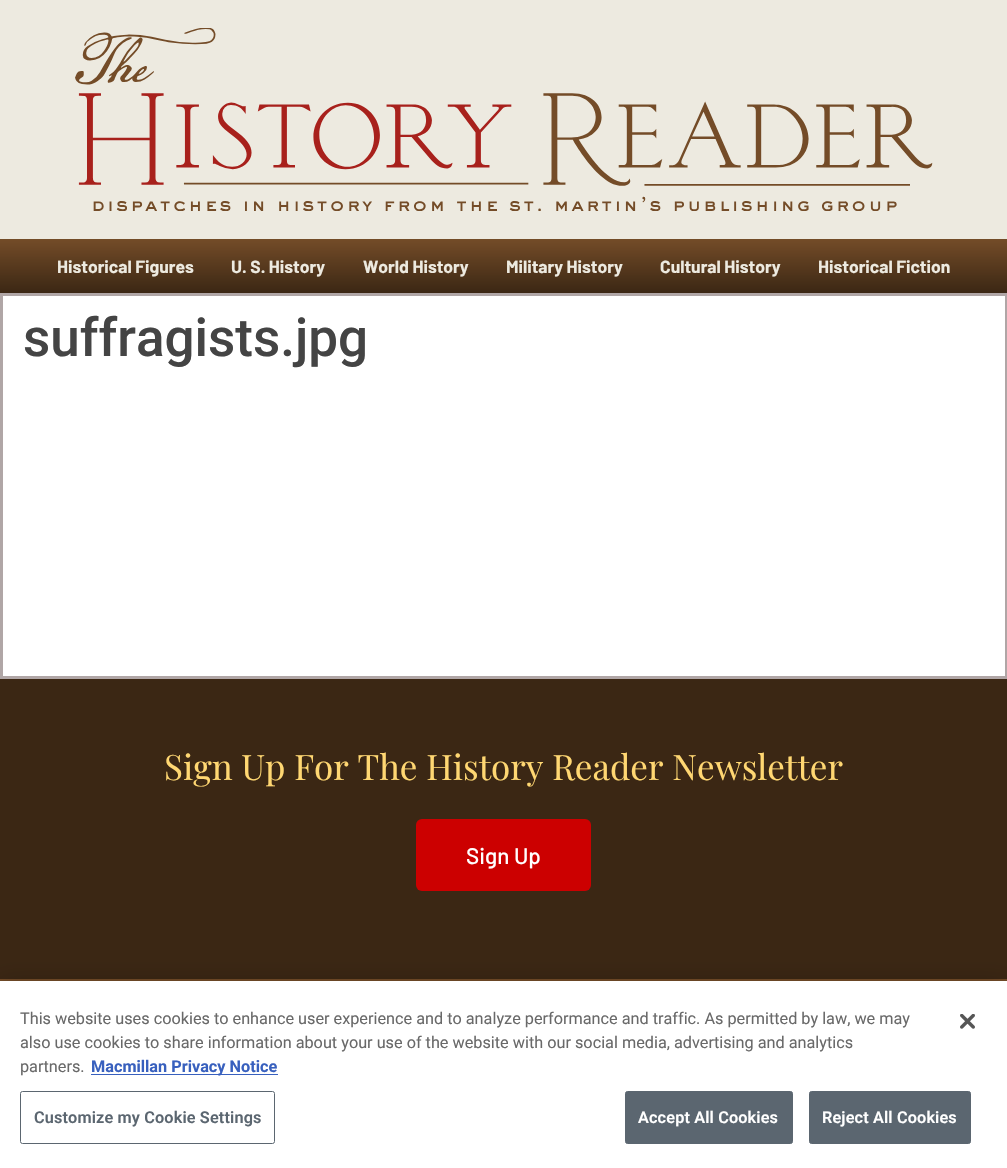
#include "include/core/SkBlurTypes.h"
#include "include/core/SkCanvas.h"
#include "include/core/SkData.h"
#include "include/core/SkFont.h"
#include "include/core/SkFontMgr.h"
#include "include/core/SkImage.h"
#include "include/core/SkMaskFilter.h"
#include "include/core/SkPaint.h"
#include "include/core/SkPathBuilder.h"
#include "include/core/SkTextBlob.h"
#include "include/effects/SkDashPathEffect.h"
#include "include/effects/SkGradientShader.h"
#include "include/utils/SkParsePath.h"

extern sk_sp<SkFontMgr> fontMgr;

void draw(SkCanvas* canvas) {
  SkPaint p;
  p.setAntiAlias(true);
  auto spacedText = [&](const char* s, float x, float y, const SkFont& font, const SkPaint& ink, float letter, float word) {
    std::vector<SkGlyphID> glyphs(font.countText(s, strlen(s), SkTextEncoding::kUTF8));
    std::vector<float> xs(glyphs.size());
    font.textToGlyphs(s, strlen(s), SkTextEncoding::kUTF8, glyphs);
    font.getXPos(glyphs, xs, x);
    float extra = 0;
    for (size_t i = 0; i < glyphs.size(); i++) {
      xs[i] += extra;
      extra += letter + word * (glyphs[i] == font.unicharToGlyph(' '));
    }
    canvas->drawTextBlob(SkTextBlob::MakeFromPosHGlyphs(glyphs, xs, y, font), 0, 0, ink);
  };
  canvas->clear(SK_ColorWHITE);
  p.setColor(SkColorSetRGB(237, 234, 224));
  canvas->drawRect(SkRect::MakeLTRB(0, 0, 1007, 239), p);
  canvas->drawImageRect(SkImages::DeferredFromEncodedData(SkData::MakeFromFileName("images/1.png")), SkRect::MakeLTRB(75, 28, 933, 211), SkSamplingOptions());
  {
    const SkColor colors[] = {SkColorSetRGB(116, 76, 40), SkColorSetRGB(59, 39, 20)};
    const float stops[] = {0, 1};
    const SkPoint ends[] = {{504, 239}, {504, 293}};
    p.setShader(SkGradientShader::MakeLinear(ends, colors, stops, 2, SkTileMode::kClamp));
    p.setAlpha(255);
  }
  canvas->drawRect(SkRect::MakeLTRB(0, 239, 1007, 293), p);
  p.setStyle(SkPaint::kStroke_Style);
  p.setStrokeWidth(3);
  p.setShader(nullptr);
  p.setColor(SkColorSetRGB(176, 166, 166));
  canvas->drawRect(SkRect::MakeLTRB(1.5f, 294.5f, 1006.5f, 677.5f), p);
  p.setStyle(SkPaint::kFill_Style);
  p.setColor(SkColorSetRGB(59, 39, 20));
  canvas->drawRect(SkRect::MakeLTRB(0, 679, 1007, 979), p);
  p.setColor(SkColorSetRGB(204, 0, 0));
  canvas->drawRoundRect(SkRect::MakeLTRB(416, 819, 591, 891), 6, 6, p);
  {
    const SkColor colors[] = {SkColorSetRGB(116, 76, 40), SkColorSetRGB(59, 39, 20)};
    const float stops[] = {0, 1};
    const SkPoint ends[] = {{504, 979}, {504, 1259}};
    p.setShader(SkGradientShader::MakeLinear(ends, colors, stops, 2, SkTileMode::kClamp));
    p.setAlpha(255);
  }
  canvas->drawRect(SkRect::MakeLTRB(0, 979, 1007, 981), p);
  p.setShader(nullptr);
  p.setColor(SkColorSetARGB(51, 0, 0, 0));
  p.setMaskFilter(SkMaskFilter::MakeBlur(kNormal_SkBlurStyle, 11));
  canvas->drawRect(SkRect::MakeLTRB(0, 981, 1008, 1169), p);
  p.setMaskFilter(nullptr);
  p.setColor(SK_ColorWHITE);
  canvas->drawRect(SkRect::MakeLTRB(0, 981, 1007, 1168), p);
  p.setColor(SkColorSetRGB(56, 96, 190));
  canvas->drawRect(SkRect::MakeLTRB(91, 1074, 278, 1075), p);
  p.setStyle(SkPaint::kStroke_Style);
  p.setStrokeWidth(1);
  p.setColor(SkColorSetRGB(91, 102, 112));
  canvas->drawRoundRect(SkRect::MakeLTRB(20.5f, 1091.5f, 274.5f, 1143.5f), 2, 2, p);
  p.setStyle(SkPaint::kFill_Style);
  canvas->drawRoundRect(SkRect::MakeLTRB(625.5f, 1091.5f, 792.5f, 1143.5f), 2, 2, p);
  p.setStyle(SkPaint::kStroke_Style);
  canvas->drawRoundRect(SkRect::MakeLTRB(625.5f, 1091.5f, 792.5f, 1143.5f), 2, 2, p);
  p.setStyle(SkPaint::kFill_Style);
  canvas->drawRoundRect(SkRect::MakeLTRB(809.5f, 1091.5f, 970.5f, 1143.5f), 2, 2, p);
  p.setStyle(SkPaint::kStroke_Style);
  canvas->drawRoundRect(SkRect::MakeLTRB(809.5f, 1091.5f, 970.5f, 1143.5f), 2, 2, p);
  canvas->drawImageRect(SkImages::DeferredFromEncodedData(SkData::MakeFromFileName("images/2.png")), SkRect::MakeLTRB(960, 1014, 975, 1029), SkSamplingOptions());
  SkFont font1(fontMgr->matchFamilyStyle("Barlow", SkFontStyle::Bold()), 17.5f);
  font1.setSubpixel(true);
  p.setStyle(SkPaint::kFill_Style);
  p.setColor(SkColorSetRGB(237, 234, 224));
  canvas->drawString("Historical Figures", 57, 273, font1, p);
  canvas->drawString("U. S. History", 231, 273, font1, p);
  canvas->drawString("World History", 363, 273, font1, p);
  canvas->drawString("Military History", 506, 273, font1, p);
  canvas->drawString("Cultural History", 660, 273, font1, p);
  canvas->drawString("Historical Fiction", 818, 273, font1, p);
  SkFont font2(fontMgr->matchFamilyStyle("Roboto", SkFontStyle(500, SkFontStyle::kNormal_Width, SkFontStyle::kUpright_Slant)), 53);
  font2.setSubpixel(true);
  p.setColor(SkColorSetRGB(68, 68, 68));
  canvas->drawString("suffragists.jpg", 23, 356, font2, p);
  SkFont font3(fontMgr->matchFamilyStyle("Playfair Display", SkFontStyle::Normal()), 35);
  font3.setSubpixel(true);
  p.setColor(SkColorSetRGB(255, 215, 114));
  canvas->drawString("Sign Up For The History Reader Newsletter", 164, 780, font3, p);
  SkFont font4(fontMgr->matchFamilyStyle("Barlow", SkFontStyle(500, SkFontStyle::kNormal_Width, SkFontStyle::kUpright_Slant)), 22.5f);
  font4.setSubpixel(true);
  p.setColor(SK_ColorWHITE);
  canvas->drawString("Sign Up", 466, 864, font4, p);
  SkFont font5(fontMgr->matchFamilyStyle("Roboto", SkFontStyle::Normal()), 16.25f);
  font5.setSubpixel(true);
  p.setColor(SkColorSetRGB(105, 105, 105));
  canvas->drawString("This website uses cookies to enhance user experience and to analyze performance and traffic. As permitted by law, we may", 20, 1024, font5, p);
  canvas->drawString("also use cookies to share information about your use of the website with our social media, advertising and analytics", 20, 1048, font5, p);
  canvas->drawString("partners.", 20, 1072, font5, p);
  SkFont font6(fontMgr->matchFamilyStyle("Roboto", SkFontStyle::Bold()), 16.25f);
  font6.setSubpixel(true);
  p.setColor(SkColorSetRGB(56, 96, 190));
  canvas->drawString("Macmillan Privacy Notice", 91, 1072, font6, p);
  SkFont font7(fontMgr->matchFamilyStyle("Roboto", SkFontStyle(600, SkFontStyle::kNormal_Width, SkFontStyle::kUpright_Slant)), 16.25f);
  font7.setSubpixel(true);
  p.setColor(SkColorSetRGB(91, 102, 112));
  spacedText("Customize my Cookie Settings", 34, 1123, font7, p, 0.15f, 0);
  p.setColor(SK_ColorWHITE);
  spacedText("Accept All Cookies", 638, 1123, font7, p, 0.15f, 0);
  spacedText("Reject All Cookies", 822, 1123, font7, p, 0.15f, 0);
}
